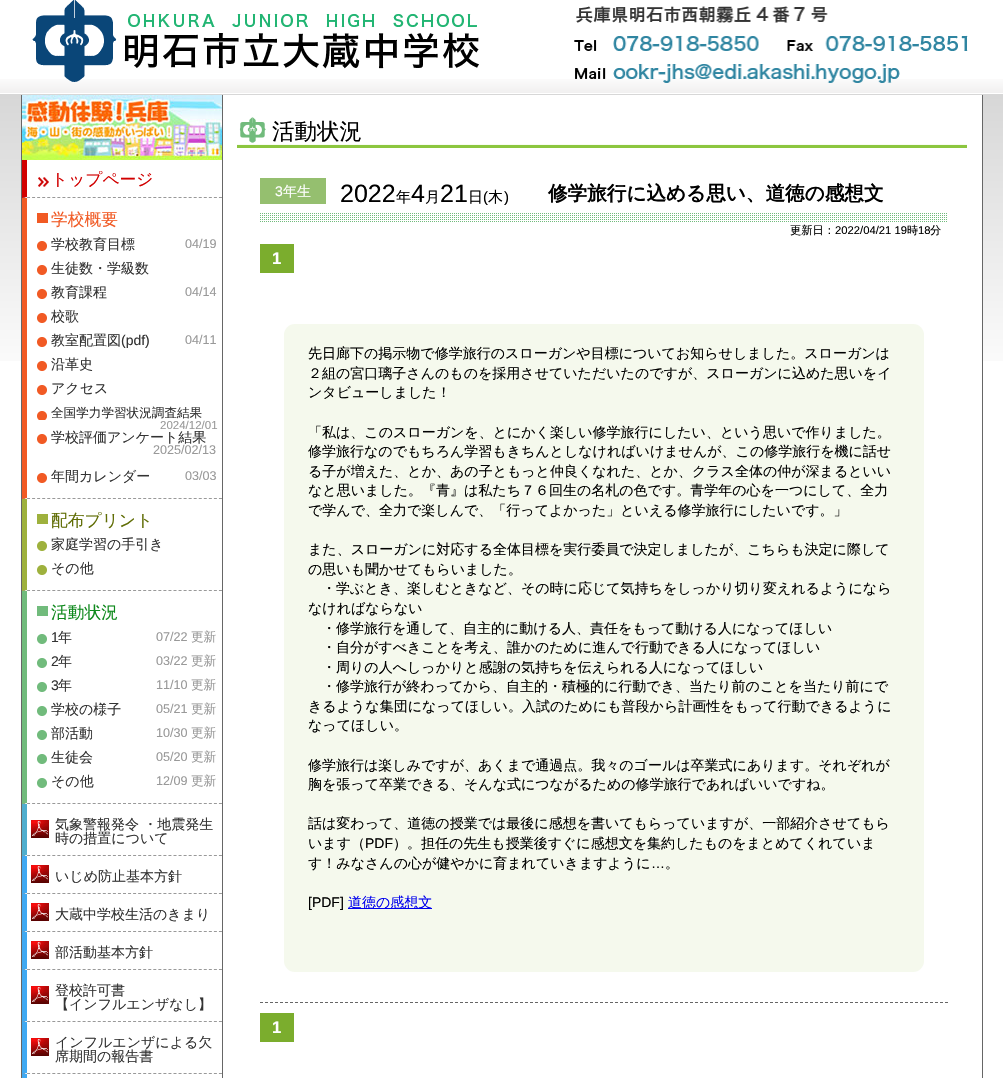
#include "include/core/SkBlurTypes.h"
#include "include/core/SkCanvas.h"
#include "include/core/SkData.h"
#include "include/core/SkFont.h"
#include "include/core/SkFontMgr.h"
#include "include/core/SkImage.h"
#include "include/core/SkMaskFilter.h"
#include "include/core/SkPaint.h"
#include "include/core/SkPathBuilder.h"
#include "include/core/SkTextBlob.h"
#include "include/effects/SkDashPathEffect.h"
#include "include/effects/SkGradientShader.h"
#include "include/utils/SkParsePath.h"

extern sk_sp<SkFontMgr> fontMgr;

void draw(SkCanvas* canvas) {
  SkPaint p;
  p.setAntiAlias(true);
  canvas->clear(SK_ColorWHITE);
  canvas->drawImageRect(SkImages::DeferredFromEncodedData(SkData::MakeFromFileName("images/1.png")), SkRect::MakeLTRB(0, 94, 1003, 361), SkSamplingOptions());
  canvas->drawImageRect(SkImages::DeferredFromEncodedData(SkData::MakeFromFileName("images/2.png")), SkRect::MakeLTRB(0, 79, 1003, 93), SkSamplingOptions());
  canvas->drawImageRect(SkImages::DeferredFromEncodedData(SkData::MakeFromFileName("images/3.png")), SkRect::MakeLTRB(32, 0, 479, 82), SkSamplingOptions());
  canvas->drawImageRect(SkImages::DeferredFromEncodedData(SkData::MakeFromFileName("images/4.png")), SkRect::MakeLTRB(574, 6, 968, 83), SkSamplingOptions());
  p.setColor(SK_ColorWHITE);
  canvas->drawRect(SkRect::MakeLTRB(25, 95, 982, 361), p);
  p.setColor(SkColorSetRGB(102, 102, 102));
  canvas->drawRect(SkRect::MakeLTRB(222, 95, 223, 1078), p);
  canvas->drawRect(SkRect::MakeLTRB(982, 95, 983, 1078), p);
  canvas->drawRect(SkRect::MakeLTRB(21, 95, 22, 1078), p);
  canvas->drawImageRect(SkImages::DeferredFromEncodedData(SkData::MakeFromFileName("images/5.png")), SkRect::MakeLTRB(22, 95, 222, 160), SkSamplingOptions());
  p.setStyle(SkPaint::kStroke_Style);
  p.setStrokeWidth(1);
  p.setColor(SkColorSetRGB(153, 153, 153));
  p.setPathEffect(SkDashPathEffect::Make({{3, 2.05f}}, 0));
  canvas->drawPath(SkPathBuilder().moveTo(22, 197.5f).lineTo(222, 197.5f).detach(), p);
  p.setPathEffect(nullptr);
  p.setStyle(SkPaint::kFill_Style);
  p.setColor(SkColorSetRGB(209, 0, 0));
  canvas->drawPath(SkPathBuilder().moveTo(22, 198).lineTo(22, 160).lineTo(27, 160).lineTo(27, 197).close().detach(), p);
  canvas->drawImageRect(SkImages::DeferredFromEncodedData(SkData::MakeFromFileName("images/6.png")), SkRect::MakeLTRB(38, 177, 49, 187), SkSamplingOptions());
  p.setStyle(SkPaint::kStroke_Style);
  p.setColor(SkColorSetRGB(153, 153, 153));
  p.setPathEffect(SkDashPathEffect::Make({{3, 2.05f}}, 0));
  canvas->drawPath(SkPathBuilder().moveTo(22, 498.5f).lineTo(222, 498.5f).detach(), p);
  p.setPathEffect(nullptr);
  p.setStyle(SkPaint::kFill_Style);
  p.setColor(SkColorSetRGB(241, 90, 36));
  canvas->drawPath(SkPathBuilder().moveTo(22, 499).lineTo(22, 198).lineTo(27, 198).lineTo(27, 498).close().detach(), p);
  canvas->drawRect(SkRect::MakeLTRB(37, 213, 48, 223), p);
  canvas->drawImageRect(SkImages::DeferredFromEncodedData(SkData::MakeFromFileName("images/7.png")), SkRect::MakeLTRB(37, 241, 47, 251), SkSamplingOptions());
  canvas->drawImageRect(SkImages::DeferredFromEncodedData(SkData::MakeFromFileName("images/7.png")), SkRect::MakeLTRB(37, 265, 47, 275), SkSamplingOptions());
  canvas->drawImageRect(SkImages::DeferredFromEncodedData(SkData::MakeFromFileName("images/7.png")), SkRect::MakeLTRB(37, 289, 47, 299), SkSamplingOptions());
  canvas->drawImageRect(SkImages::DeferredFromEncodedData(SkData::MakeFromFileName("images/7.png")), SkRect::MakeLTRB(37, 313, 47, 323), SkSamplingOptions());
  canvas->drawImageRect(SkImages::DeferredFromEncodedData(SkData::MakeFromFileName("images/7.png")), SkRect::MakeLTRB(37, 337, 47, 347), SkSamplingOptions());
  canvas->drawImageRect(SkImages::DeferredFromEncodedData(SkData::MakeFromFileName("images/7.png")), SkRect::MakeLTRB(37, 361, 47, 371), SkSamplingOptions());
  canvas->drawImageRect(SkImages::DeferredFromEncodedData(SkData::MakeFromFileName("images/7.png")), SkRect::MakeLTRB(37, 385, 47, 395), SkSamplingOptions());
  canvas->drawImageRect(SkImages::DeferredFromEncodedData(SkData::MakeFromFileName("images/8.png")), SkRect::MakeLTRB(37, 411, 47, 420), SkSamplingOptions());
  canvas->drawImageRect(SkImages::DeferredFromEncodedData(SkData::MakeFromFileName("images/7.png")), SkRect::MakeLTRB(37, 434, 47, 444), SkSamplingOptions());
  canvas->drawImageRect(SkImages::DeferredFromEncodedData(SkData::MakeFromFileName("images/7.png")), SkRect::MakeLTRB(37, 473, 47, 483), SkSamplingOptions());
  p.setStyle(SkPaint::kStroke_Style);
  p.setColor(SkColorSetRGB(153, 153, 153));
  p.setPathEffect(SkDashPathEffect::Make({{3, 2.05f}}, 0));
  canvas->drawPath(SkPathBuilder().moveTo(22, 590.5f).lineTo(222, 590.5f).detach(), p);
  p.setPathEffect(nullptr);
  p.setStyle(SkPaint::kFill_Style);
  p.setColor(SkColorSetRGB(158, 177, 61));
  canvas->drawPath(SkPathBuilder().moveTo(22, 591).lineTo(22, 499).lineTo(27, 499).lineTo(27, 590).close().detach(), p);
  canvas->drawRect(SkRect::MakeLTRB(37, 514, 48, 524), p);
  canvas->drawImageRect(SkImages::DeferredFromEncodedData(SkData::MakeFromFileName("images/9.png")), SkRect::MakeLTRB(37, 541, 47, 551), SkSamplingOptions());
  canvas->drawImageRect(SkImages::DeferredFromEncodedData(SkData::MakeFromFileName("images/9.png")), SkRect::MakeLTRB(37, 565, 47, 575), SkSamplingOptions());
  p.setStyle(SkPaint::kStroke_Style);
  p.setColor(SkColorSetRGB(153, 153, 153));
  p.setPathEffect(SkDashPathEffect::Make({{3, 2.05f}}, 0));
  canvas->drawPath(SkPathBuilder().moveTo(22, 803.5f).lineTo(222, 803.5f).detach(), p);
  p.setPathEffect(nullptr);
  p.setStyle(SkPaint::kFill_Style);
  p.setColor(SkColorSetRGB(113, 187, 124));
  canvas->drawPath(SkPathBuilder().moveTo(22, 804).lineTo(22, 591).lineTo(27, 591).lineTo(27, 803).close().detach(), p);
  canvas->drawRect(SkRect::MakeLTRB(37, 606, 48, 616), p);
  canvas->drawImageRect(SkImages::DeferredFromEncodedData(SkData::MakeFromFileName("images/10.png")), SkRect::MakeLTRB(37, 634, 47, 644), SkSamplingOptions());
  canvas->drawImageRect(SkImages::DeferredFromEncodedData(SkData::MakeFromFileName("images/10.png")), SkRect::MakeLTRB(37, 658, 47, 668), SkSamplingOptions());
  canvas->drawImageRect(SkImages::DeferredFromEncodedData(SkData::MakeFromFileName("images/10.png")), SkRect::MakeLTRB(37, 682, 47, 692), SkSamplingOptions());
  canvas->drawImageRect(SkImages::DeferredFromEncodedData(SkData::MakeFromFileName("images/10.png")), SkRect::MakeLTRB(37, 706, 47, 716), SkSamplingOptions());
  canvas->drawImageRect(SkImages::DeferredFromEncodedData(SkData::MakeFromFileName("images/10.png")), SkRect::MakeLTRB(37, 730, 47, 740), SkSamplingOptions());
  canvas->drawImageRect(SkImages::DeferredFromEncodedData(SkData::MakeFromFileName("images/10.png")), SkRect::MakeLTRB(37, 754, 47, 764), SkSamplingOptions());
  canvas->drawImageRect(SkImages::DeferredFromEncodedData(SkData::MakeFromFileName("images/10.png")), SkRect::MakeLTRB(37, 778, 47, 788), SkSamplingOptions());
  canvas->drawImageRect(SkImages::DeferredFromEncodedData(SkData::MakeFromFileName("images/11.png")), SkRect::MakeLTRB(31, 820, 49, 838), SkSamplingOptions());
  p.setStyle(SkPaint::kStroke_Style);
  p.setColor(SkColorSetRGB(153, 153, 153));
  p.setPathEffect(SkDashPathEffect::Make({{3, 2.05f}}, 0));
  canvas->drawPath(SkPathBuilder().moveTo(22, 855.5f).lineTo(222, 855.5f).detach(), p);
  p.setPathEffect(nullptr);
  p.setStyle(SkPaint::kFill_Style);
  p.setColor(SkColorSetRGB(79, 174, 206));
  canvas->drawPath(SkPathBuilder().moveTo(22, 856).lineTo(22, 804).lineTo(27, 804).lineTo(27, 855).close().detach(), p);
  canvas->drawImageRect(SkImages::DeferredFromEncodedData(SkData::MakeFromFileName("images/11.png")), SkRect::MakeLTRB(31, 865, 49, 883), SkSamplingOptions());
  p.setStyle(SkPaint::kStroke_Style);
  p.setColor(SkColorSetRGB(153, 153, 153));
  p.setPathEffect(SkDashPathEffect::Make({{3, 2.05f}}, 0));
  canvas->drawPath(SkPathBuilder().moveTo(22, 893.5f).lineTo(222, 893.5f).detach(), p);
  p.setPathEffect(nullptr);
  p.setStyle(SkPaint::kFill_Style);
  p.setColor(SkColorSetRGB(64, 169, 242));
  canvas->drawPath(SkPathBuilder().moveTo(22, 894).lineTo(22, 856).lineTo(27, 856).lineTo(27, 893).close().detach(), p);
  canvas->drawImageRect(SkImages::DeferredFromEncodedData(SkData::MakeFromFileName("images/11.png")), SkRect::MakeLTRB(31, 903, 49, 921), SkSamplingOptions());
  p.setStyle(SkPaint::kStroke_Style);
  p.setColor(SkColorSetRGB(153, 153, 153));
  p.setPathEffect(SkDashPathEffect::Make({{3, 2.05f}}, 0));
  canvas->drawPath(SkPathBuilder().moveTo(22, 931.5f).lineTo(222, 931.5f).detach(), p);
  p.setPathEffect(nullptr);
  p.setStyle(SkPaint::kFill_Style);
  p.setColor(SkColorSetRGB(64, 169, 242));
  canvas->drawPath(SkPathBuilder().moveTo(22, 932).lineTo(22, 894).lineTo(27, 894).lineTo(27, 931).close().detach(), p);
  canvas->drawImageRect(SkImages::DeferredFromEncodedData(SkData::MakeFromFileName("images/11.png")), SkRect::MakeLTRB(31, 941, 49, 959), SkSamplingOptions());
  p.setStyle(SkPaint::kStroke_Style);
  p.setColor(SkColorSetRGB(153, 153, 153));
  p.setPathEffect(SkDashPathEffect::Make({{3, 2.05f}}, 0));
  canvas->drawPath(SkPathBuilder().moveTo(22, 969.5f).lineTo(222, 969.5f).detach(), p);
  p.setPathEffect(nullptr);
  p.setStyle(SkPaint::kFill_Style);
  p.setColor(SkColorSetRGB(64, 169, 242));
  canvas->drawPath(SkPathBuilder().moveTo(22, 970).lineTo(22, 932).lineTo(27, 932).lineTo(27, 969).close().detach(), p);
  canvas->drawImageRect(SkImages::DeferredFromEncodedData(SkData::MakeFromFileName("images/11.png")), SkRect::MakeLTRB(31, 986, 49, 1004), SkSamplingOptions());
  p.setStyle(SkPaint::kStroke_Style);
  p.setColor(SkColorSetRGB(153, 153, 153));
  p.setPathEffect(SkDashPathEffect::Make({{3, 2.05f}}, 0));
  canvas->drawPath(SkPathBuilder().moveTo(22, 1021.5f).lineTo(222, 1021.5f).detach(), p);
  p.setPathEffect(nullptr);
  p.setStyle(SkPaint::kFill_Style);
  p.setColor(SkColorSetRGB(64, 169, 242));
  canvas->drawPath(SkPathBuilder().moveTo(22, 1022).lineTo(22, 970).lineTo(27, 970).lineTo(27, 1021).close().detach(), p);
  canvas->drawImageRect(SkImages::DeferredFromEncodedData(SkData::MakeFromFileName("images/11.png")), SkRect::MakeLTRB(31, 1038, 49, 1056), SkSamplingOptions());
  p.setStyle(SkPaint::kStroke_Style);
  p.setColor(SkColorSetRGB(153, 153, 153));
  p.setPathEffect(SkDashPathEffect::Make({{3, 2.05f}}, 0));
  canvas->drawPath(SkPathBuilder().moveTo(22, 1073.5f).lineTo(222, 1073.5f).detach(), p);
  p.setPathEffect(nullptr);
  p.setStyle(SkPaint::kFill_Style);
  p.setColor(SkColorSetRGB(64, 169, 242));
  canvas->drawPath(SkPathBuilder().moveTo(22, 1074).lineTo(22, 1022).lineTo(27, 1022).lineTo(27, 1073).close().detach(), p);
  canvas->drawPath(SkPathBuilder().moveTo(22, 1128).lineTo(22, 1074).lineTo(27, 1074).lineTo(27, 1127).close().detach(), p);
  canvas->drawImageRect(SkImages::DeferredFromEncodedData(SkData::MakeFromFileName("images/12.png")), SkRect::MakeLTRB(237, 117, 967, 148), SkSamplingOptions());
  canvas->drawImageRect(SkImages::DeferredFromEncodedData(SkData::MakeFromFileName("images/13.png")), SkRect::MakeLTRB(260, 213, 947, 222), SkSamplingOptions());
  p.setColor(SkColorSetRGB(149, 191, 111));
  canvas->drawRect(SkRect::MakeLTRB(260, 178, 326, 204), p);
  p.setColor(SkColorSetRGB(123, 173, 45));
  canvas->drawRect(SkRect::MakeLTRB(260, 244, 294, 273), p);
  p.setStyle(SkPaint::kStroke_Style);
  p.setColor(SkColorSetRGB(102, 102, 102));
  p.setPathEffect(SkDashPathEffect::Make({{3, 2}}, 0));
  canvas->drawPath(SkPathBuilder().moveTo(260, 1002.5f).lineTo(948, 1002.5f).detach(), p);
  p.setPathEffect(nullptr);
  p.setStyle(SkPaint::kFill_Style);
  p.setColor(SkColorSetRGB(245, 249, 237));
  canvas->drawRoundRect(SkRect::MakeLTRB(284, 324, 924, 972), 11, 11, p);
  p.setColor(SkColorSetRGB(0, 0, 238));
  canvas->drawRect(SkRect::MakeLTRB(348, 908, 432, 909), p);
  p.setColor(SkColorSetRGB(123, 173, 45));
  canvas->drawRect(SkRect::MakeLTRB(260, 1013, 294, 1042), p);
  SkFont font1(fontMgr->matchFamilyStyle("WenQuanYi Zen Hei", SkFontStyle(500, SkFontStyle::kNormal_Width, SkFontStyle::kUpright_Slant)), 16.75f);
  font1.setSubpixel(true);
  p.setColor(SkColorSetRGB(209, 0, 0));
  canvas->drawString("トップページ", 51, 185, font1, p);
  p.setColor(SkColorSetRGB(241, 90, 36));
  canvas->drawString("学校概要", 51, 225, font1, p);
  SkFont font2(fontMgr->matchFamilyStyle("WenQuanYi Zen Hei", SkFontStyle(500, SkFontStyle::kNormal_Width, SkFontStyle::kUpright_Slant)), 14);
  font2.setSubpixel(true);
  p.setColor(SkColorSetRGB(51, 51, 51));
  canvas->drawString("学校教育目標", 51, 249, font2, p);
  SkFont font3(fontMgr->matchFamilyStyle("Liberation Sans", SkFontStyle::Normal()), 12.6f);
  font3.setSubpixel(true);
  p.setColor(SkColorSetRGB(153, 153, 153));
  canvas->drawString("04/19", 185, 248, font3, p);
  p.setColor(SkColorSetRGB(51, 51, 51));
  canvas->drawString("生徒数・学級数", 51, 273, font2, p);
  canvas->drawString("教育課程", 51, 297, font2, p);
  p.setColor(SkColorSetRGB(153, 153, 153));
  canvas->drawString("04/14", 185, 296, font3, p);
  p.setColor(SkColorSetRGB(51, 51, 51));
  canvas->drawString("校歌", 51, 321, font2, p);
  canvas->drawString("教室配置図", 51, 345, font2, p);
  SkFont font4(fontMgr->matchFamilyStyle("Liberation Sans", SkFontStyle::Normal()), 14);
  font4.setSubpixel(true);
  canvas->drawString("(pdf)", 121, 345, font4, p);
  p.setColor(SkColorSetRGB(153, 153, 153));
  canvas->drawString("04/11", 185, 344, font3, p);
  p.setColor(SkColorSetRGB(51, 51, 51));
  canvas->drawString("沿革史", 51, 369, font2, p);
  canvas->drawString("アクセス", 51, 393, font2, p);
  SkFont font5(fontMgr->matchFamilyStyle("WenQuanYi Zen Hei", SkFontStyle(500, SkFontStyle::kNormal_Width, SkFontStyle::kUpright_Slant)), 12.6f);
  font5.setSubpixel(true);
  canvas->drawString("全国学力学習状況調査結果", 51, 417, font5, p);
  SkFont font6(fontMgr->matchFamilyStyle("Liberation Sans", SkFontStyle::Normal()), 11.5f);
  font6.setSubpixel(true);
  p.setColor(SkColorSetRGB(153, 153, 153));
  canvas->drawString("2024/12/01", 160, 429, font6, p);
  p.setColor(SkColorSetRGB(51, 51, 51));
  canvas->drawString("学校評価アンケート結果", 51, 442, font2, p);
  p.setColor(SkColorSetRGB(153, 153, 153));
  canvas->drawString("2025/02/13", 153, 454, font3, p);
  p.setColor(SkColorSetRGB(51, 51, 51));
  canvas->drawString("年間カレンダー", 51, 481, font2, p);
  p.setColor(SkColorSetRGB(153, 153, 153));
  canvas->drawString("03/03", 185, 480, font3, p);
  p.setColor(SkColorSetRGB(96, 109, 5));
  canvas->drawString("配布プリント", 51, 526, font1, p);
  p.setColor(SkColorSetRGB(51, 51, 51));
  canvas->drawString("家庭学習の手引き", 51, 549, font2, p);
  canvas->drawString("その他", 51, 573, font2, p);
  p.setColor(SkColorSetRGB(14, 137, 28));
  canvas->drawString("活動状況", 51, 618, font1, p);
  p.setColor(SkColorSetRGB(51, 51, 51));
  canvas->drawString("1", 51, 642, font4, p);
  canvas->drawString("年", 58, 642, font2, p);
  p.setColor(SkColorSetRGB(153, 153, 153));
  canvas->drawString("07/22", 156, 641, font3, p);
  canvas->drawString("更新", 191, 641, font5, p);
  p.setColor(SkColorSetRGB(51, 51, 51));
  canvas->drawString("2", 51, 666, font4, p);
  canvas->drawString("年", 58, 666, font2, p);
  p.setColor(SkColorSetRGB(153, 153, 153));
  canvas->drawString("03/22", 156, 665, font3, p);
  canvas->drawString("更新", 191, 665, font5, p);
  p.setColor(SkColorSetRGB(51, 51, 51));
  canvas->drawString("3", 51, 690, font4, p);
  canvas->drawString("年", 58, 690, font2, p);
  p.setColor(SkColorSetRGB(153, 153, 153));
  canvas->drawString("11/10", 156, 689, font3, p);
  canvas->drawString("更新", 191, 689, font5, p);
  p.setColor(SkColorSetRGB(51, 51, 51));
  canvas->drawString("学校の様子", 51, 714, font2, p);
  p.setColor(SkColorSetRGB(153, 153, 153));
  canvas->drawString("05/21", 156, 713, font3, p);
  canvas->drawString("更新", 191, 713, font5, p);
  p.setColor(SkColorSetRGB(51, 51, 51));
  canvas->drawString("部活動", 51, 738, font2, p);
  p.setColor(SkColorSetRGB(153, 153, 153));
  canvas->drawString("10/30", 156, 737, font3, p);
  canvas->drawString("更新", 191, 737, font5, p);
  p.setColor(SkColorSetRGB(51, 51, 51));
  canvas->drawString("生徒会", 51, 762, font2, p);
  p.setColor(SkColorSetRGB(153, 153, 153));
  canvas->drawString("05/20", 156, 761, font3, p);
  canvas->drawString("更新", 191, 761, font5, p);
  p.setColor(SkColorSetRGB(51, 51, 51));
  canvas->drawString("その他", 51, 786, font2, p);
  p.setColor(SkColorSetRGB(153, 153, 153));
  canvas->drawString("12/09", 156, 785, font3, p);
  canvas->drawString("更新", 191, 785, font5, p);
  p.setColor(SkColorSetRGB(51, 51, 51));
  canvas->drawString("気象警報発令 ・地震発生", 55, 829, font2, p);
  canvas->drawString("時の措置について", 55, 843, font2, p);
  canvas->drawString("いじめ防止基本方針", 55, 881, font2, p);
  canvas->drawString("大蔵中学校生活のきまり", 55, 919, font2, p);
  canvas->drawString("部活動基本方針", 55, 957, font2, p);
  canvas->drawString("登校許可書", 55, 995, font2, p);
  canvas->drawString("【インフルエンザなし】", 55, 1009, font2, p);
  canvas->drawString("インフルエンザによる欠", 55, 1047, font2, p);
  canvas->drawString("席期間の報告書", 55, 1061, font2, p);
  SkFont font7(fontMgr->matchFamilyStyle("WenQuanYi Zen Hei", SkFontStyle(500, SkFontStyle::kNormal_Width, SkFontStyle::kUpright_Slant)), 22.5f);
  font7.setSubpixel(true);
  p.setColor(SK_ColorBLACK);
  canvas->drawString("活動状況", 272, 139, font7, p);
  p.setColor(SK_ColorWHITE);
  canvas->drawString("3", 275, 196, font4, p);
  canvas->drawString("年生", 283, 196, font2, p);
  SkFont font8(fontMgr->matchFamilyStyle("Liberation Sans", SkFontStyle::Normal()), 25);
  font8.setSubpixel(true);
  p.setColor(SK_ColorBLACK);
  canvas->drawString("2022", 340, 202, font8, p);
  SkFont font9(fontMgr->matchFamilyStyle("WenQuanYi Zen Hei", SkFontStyle(500, SkFontStyle::kNormal_Width, SkFontStyle::kUpright_Slant)), 15);
  font9.setSubpixel(true);
  canvas->drawString("年", 396, 202, font9, p);
  canvas->drawString("4", 411, 202, font8, p);
  canvas->drawString("月", 425, 202, font9, p);
  canvas->drawString("21", 440, 202, font8, p);
  canvas->drawString("日", 468, 202, font9, p);
  SkFont font10(fontMgr->matchFamilyStyle("Liberation Sans", SkFontStyle::Normal()), 15);
  font10.setSubpixel(true);
  canvas->drawString("(", 483, 202, font10, p);
  canvas->drawString("木", 488, 202, font9, p);
  canvas->drawString(")", 504, 202, font10, p);
  SkFont font11(fontMgr->matchFamilyStyle("WenQuanYi Zen Hei", SkFontStyle::Bold()), 19.6f);
  font11.setSubpixel(true);
  canvas->drawString("修学旅行に込める思い、道徳の感想文", 548, 200, font11, p);
  SkFont font12(fontMgr->matchFamilyStyle("WenQuanYi Zen Hei", SkFontStyle(500, SkFontStyle::kNormal_Width, SkFontStyle::kUpright_Slant)), 11.25f);
  font12.setSubpixel(true);
  canvas->drawString("更新日：", 790, 234, font12, p);
  SkFont font13(fontMgr->matchFamilyStyle("Liberation Sans", SkFontStyle::Normal()), 11.25f);
  font13.setSubpixel(true);
  canvas->drawString("2022/04/21 19", 835, 234, font13, p);
  canvas->drawString("時", 907, 234, font12, p);
  canvas->drawString("18", 918, 234, font13, p);
  canvas->drawString("分", 930, 234, font12, p);
  SkFont font14(fontMgr->matchFamilyStyle("Liberation Sans", SkFontStyle::Bold()), 16.75f);
  font14.setSubpixel(true);
  p.setColor(SK_ColorWHITE);
  canvas->drawString("1", 272, 264, font14, p);
  p.setColor(SK_ColorBLACK);
  canvas->drawString("先日廊下の掲示物で修学旅行のスローガンや目標についてお知らせしました。スローガンは", 308, 358, font2, p);
  canvas->drawString("２組の宮口璃子さんのものを採用させていただいたのですが、スローガンに込めた思いをイ", 308, 378, font2, p);
  canvas->drawString("ンタビューしました！", 308, 397, font2, p);
  canvas->drawString("「私は、このスローガンを、とにかく楽しい修学旅行にしたい、という思いで作りました。", 308, 437, font2, p);
  canvas->drawString("修学旅行なのでもちろん学習もきちんとしなければいけませんが、この修学旅行を機に話せ", 308, 456, font2, p);
  canvas->drawString("る子が増えた、とか、あの子ともっと仲良くなれた、とか、クラス全体の仲が深まるといい", 308, 476, font2, p);
  canvas->drawString("なと思いました。『青』は私たち７６回生の名札の色です。青学年の心を一つにして、全力", 308, 495, font2, p);
  canvas->drawString("で学んで、全力で楽しんで、「行ってよかった」といえる修学旅行にしたいです。」", 308, 515, font2, p);
  canvas->drawString("また、スローガンに対応する全体目標を実行委員で決定しましたが、こちらも決定に際して", 308, 554, font2, p);
  canvas->drawString("の思いも聞かせてもらいました。", 308, 574, font2, p);
  canvas->drawString("・学ぶとき、楽しむときなど、その時に応じて気持ちをしっかり切り変えれるようになら", 322, 593, font2, p);
  canvas->drawString("なければならない", 308, 613, font2, p);
  canvas->drawString("・修学旅行を通して、自主的に動ける人、責任をもって動ける人になってほしい", 322, 633, font2, p);
  canvas->drawString("・自分がすべきことを考え、誰かのために進んで行動できる人になってほしい", 322, 652, font2, p);
  canvas->drawString("・周りの人へしっかりと感謝の気持ちを伝えられる人になってほしい", 322, 672, font2, p);
  canvas->drawString("・修学旅行が終わってから、自主的・積極的に行動でき、当たり前のことを当たり前にで", 322, 691, font2, p);
  canvas->drawString("きるような集団になってほしい。入試のためにも普段から計画性をもって行動できるように", 308, 711, font2, p);
  canvas->drawString("なってほしい。", 308, 730, font2, p);
  canvas->drawString("修学旅行は楽しみですが、あくまで通過点。我々のゴールは卒業式にあります。それぞれが", 308, 770, font2, p);
  canvas->drawString("胸を張って卒業できる、そんな式につながるための修学旅行であればいいですね。", 308, 789, font2, p);
  canvas->drawString("話は変わって、道徳の授業では最後に感想を書いてもらっていますが、一部紹介させてもら", 308, 828, font2, p);
  canvas->drawString("います（", 308, 848, font2, p);
  canvas->drawString("PDF", 365, 848, font4, p);
  canvas->drawString("）。担任の先生も授業後すぐに感想文を集約したものをまとめてくれていま", 393, 848, font2, p);
  canvas->drawString("す！みなさんの心が健やかに育まれていきますように", 308, 868, font2, p);
  canvas->drawString("…", 651, 868, font4, p);
  canvas->drawString("。", 665, 868, font2, p);
  canvas->drawString("[PDF]", 308, 907, font4, p);
  p.setColor(SkColorSetRGB(0, 0, 238));
  canvas->drawString("道徳の感想文", 348, 907, font2, p);
  p.setColor(SK_ColorWHITE);
  canvas->drawString("1", 272, 1033, font14, p);
}
